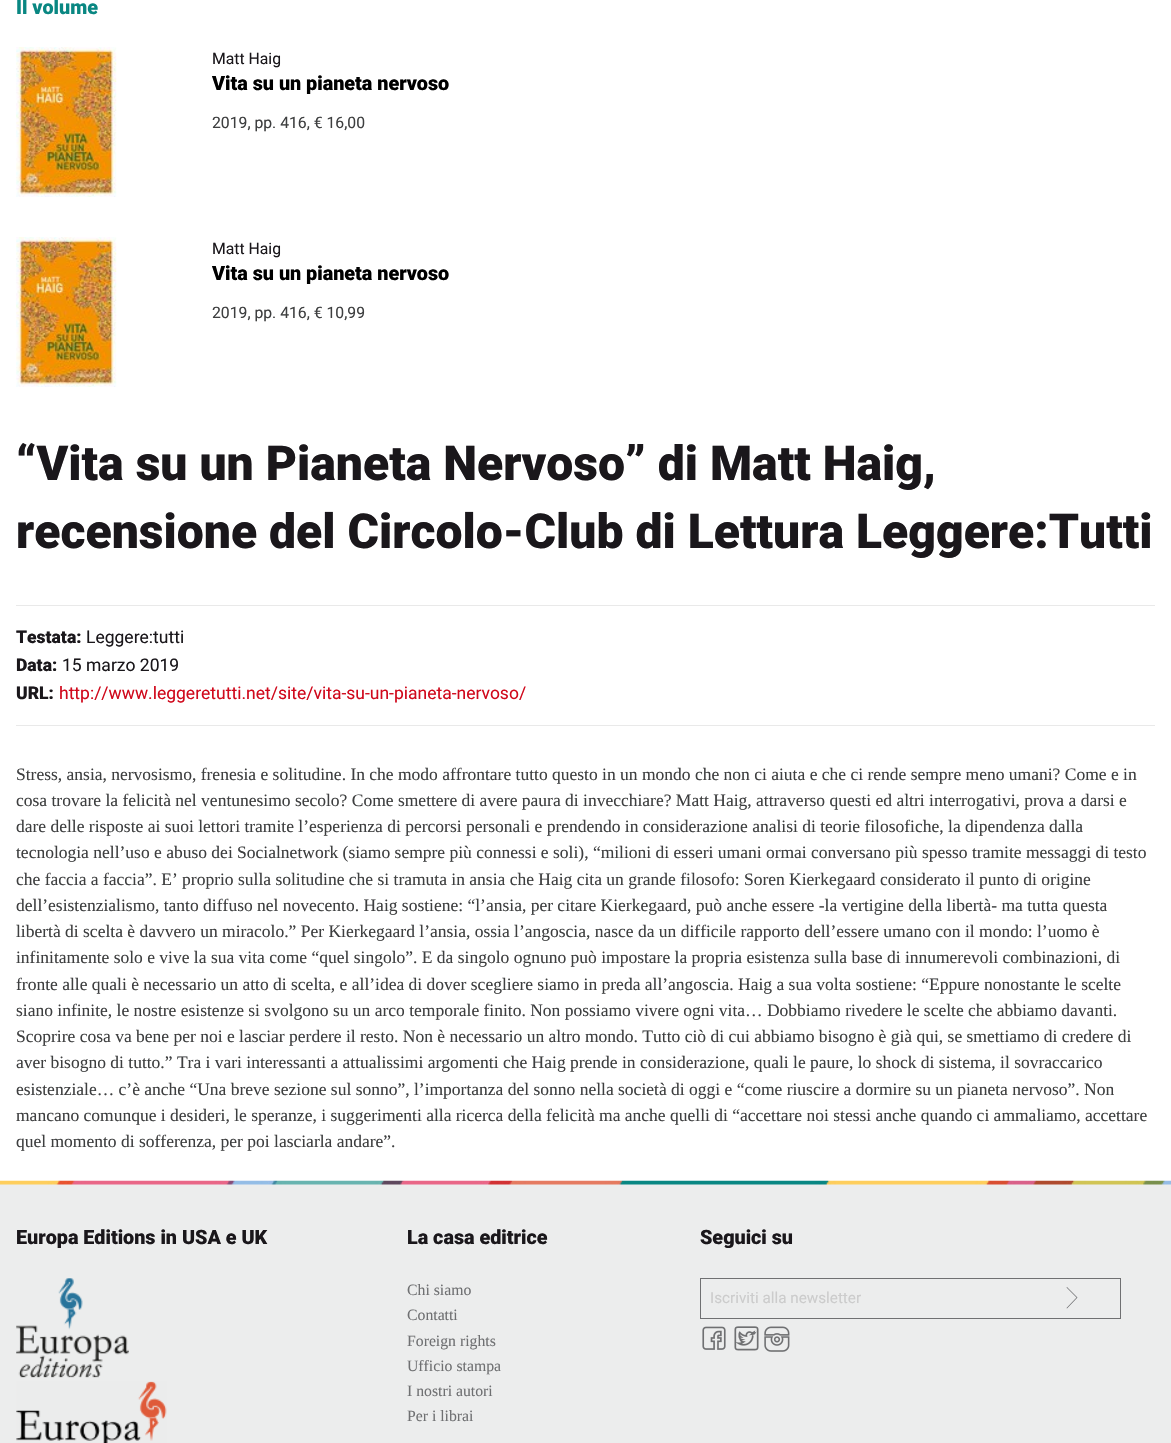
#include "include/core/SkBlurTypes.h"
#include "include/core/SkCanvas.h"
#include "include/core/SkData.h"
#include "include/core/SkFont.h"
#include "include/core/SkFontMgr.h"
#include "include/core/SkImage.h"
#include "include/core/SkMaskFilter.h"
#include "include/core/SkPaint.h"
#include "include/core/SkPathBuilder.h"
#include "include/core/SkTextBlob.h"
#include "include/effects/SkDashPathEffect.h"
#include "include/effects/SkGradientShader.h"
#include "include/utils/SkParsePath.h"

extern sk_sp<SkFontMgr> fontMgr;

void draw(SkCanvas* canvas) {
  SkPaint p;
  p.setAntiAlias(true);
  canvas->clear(SK_ColorWHITE);
  canvas->drawImageRect(SkImages::DeferredFromEncodedData(SkData::MakeFromFileName("images/1.png")), SkRect::MakeLTRB(16, 47, 117, 197), SkSamplingOptions());
  canvas->drawImageRect(SkImages::DeferredFromEncodedData(SkData::MakeFromFileName("images/2.png")), SkRect::MakeLTRB(16, 237, 117, 387), SkSamplingOptions());
  p.setColor(SkColorSetRGB(233, 233, 233));
  canvas->drawRect(SkRect::MakeLTRB(16, 605, 1155, 606), p);
  canvas->drawRect(SkRect::MakeLTRB(16, 725, 1155, 726), p);
  p.setColor(SkColorSetRGB(236, 237, 237));
  canvas->drawRect(SkRect::MakeLTRB(0, 1184, 1171, 1443), p);
  canvas->drawImageRect(SkImages::DeferredFromEncodedData(SkData::MakeFromFileName("images/3.png")), SkRect::MakeLTRB(0, 1180, 1171, 1185), SkSamplingOptions());
  canvas->drawImageRect(SkImages::DeferredFromEncodedData(SkData::MakeFromFileName("images/4.png")), SkRect::MakeLTRB(16, 1278, 129, 1378), SkSamplingOptions());
  canvas->drawImageRect(SkImages::DeferredFromEncodedData(SkData::MakeFromFileName("images/5.png")), SkRect::MakeLTRB(16, 1381, 167, 1443), SkSamplingOptions());
  p.setColor(SkColorSetRGB(111, 112, 114));
  canvas->drawRect(SkRect::MakeLTRB(700, 1278, 1121, 1279), p);
  canvas->drawRect(SkRect::MakeLTRB(700, 1318, 1041, 1319), p);
  canvas->drawRect(SkRect::MakeLTRB(700, 1278, 701, 1319), p);
  canvas->drawRect(SkRect::MakeLTRB(1120, 1278, 1121, 1319), p);
  canvas->drawRect(SkRect::MakeLTRB(1041, 1318, 1121, 1319), p);
  canvas->drawPath(SkPathBuilder().moveTo(1066.5f, 1308).lineTo(1067, 1308.5f).lineTo(1077.5f, 1297.5f).lineTo(1067, 1287).lineTo(1066.5f, 1287.5f).lineTo(1076.5f, 1297.5f).close().detach(), p);
  canvas->drawImageRect(SkImages::DeferredFromEncodedData(SkData::MakeFromFileName("images/6.png")), SkRect::MakeLTRB(702, 1326, 726, 1350), SkSamplingOptions());
  canvas->drawImageRect(SkImages::DeferredFromEncodedData(SkData::MakeFromFileName("images/7.png")), SkRect::MakeLTRB(734, 1326, 759, 1351), SkSamplingOptions());
  canvas->drawImageRect(SkImages::DeferredFromEncodedData(SkData::MakeFromFileName("images/8.png")), SkRect::MakeLTRB(764, 1326, 790, 1352), SkSamplingOptions());
  SkFont font1(fontMgr->matchFamilyStyle("Roboto", SkFontStyle(900, SkFontStyle::kNormal_Width, SkFontStyle::kUpright_Slant)), 19.75f);
  font1.setSubpixel(true);
  p.setColor(SkColorSetRGB(9, 135, 130));
  canvas->drawString("Il volume", 16, 14, font1, p);
  SkFont font2(fontMgr->matchFamilyStyle("Roboto", SkFontStyle::Normal()), 15.75f);
  font2.setSubpixel(true);
  p.setColor(SkColorSetRGB(26, 23, 27));
  canvas->drawString("Matt Haig", 212, 64, font2, p);
  p.setColor(SK_ColorBLACK);
  canvas->drawString("Vita su un pianeta nervoso", 212, 90, font1, p);
  p.setColor(SkColorSetRGB(62, 63, 64));
  canvas->drawString("2019, pp. 416, € 16,00", 212, 128, font2, p);
  p.setColor(SkColorSetRGB(26, 23, 27));
  canvas->drawString("Matt Haig", 212, 254, font2, p);
  p.setColor(SK_ColorBLACK);
  canvas->drawString("Vita su un pianeta nervoso", 212, 280, font1, p);
  p.setColor(SkColorSetRGB(62, 63, 64));
  canvas->drawString("2019, pp. 416, € 10,99", 212, 318, font2, p);
  SkFont font3(fontMgr->matchFamilyStyle("Roboto", SkFontStyle(900, SkFontStyle::kNormal_Width, SkFontStyle::kUpright_Slant)), 48.1f);
  font3.setSubpixel(true);
  p.setColor(SkColorSetRGB(26, 23, 27));
  canvas->drawString("“Vita su un Pianeta Nervoso” di Matt Haig,", 16, 480, font3, p);
  canvas->drawString("recensione del Circolo-Club di Lettura Leggere:Tutti", 16, 548, font3, p);
  SkFont font4(fontMgr->matchFamilyStyle("Roboto", SkFontStyle(900, SkFontStyle::kNormal_Width, SkFontStyle::kUpright_Slant)), 17.5f);
  font4.setSubpixel(true);
  canvas->drawString("Testata:", 16, 643, font4, p);
  SkFont font5(fontMgr->matchFamilyStyle("Roboto", SkFontStyle::Normal()), 17.5f);
  font5.setSubpixel(true);
  canvas->drawString("Leggere:tutti", 86, 643, font5, p);
  canvas->drawString("Data:", 16, 671, font4, p);
  canvas->drawString("15 marzo 2019", 62, 671, font5, p);
  canvas->drawString("URL:", 16, 699, font4, p);
  p.setColor(SkColorSetRGB(208, 9, 28));
  canvas->drawString("http://www.leggeretutti.net/site/vita-su-un-pianeta-nervoso/", 59, 699, font5, p);
  SkFont font6(fontMgr->matchFamilyStyle("Liberation Serif", SkFontStyle::Normal()), 17.5f);
  font6.setSubpixel(true);
  p.setColor(SkColorSetRGB(62, 63, 64));
  canvas->drawString("Stress, ansia, nervosismo, frenesia e solitudine. In che modo affrontare tutto questo in un mondo che non ci aiuta e che ci rende sempre meno umani? Come e in", 16, 780, font6, p);
  canvas->drawString("cosa trovare la felicità nel ventunesimo secolo? Come smettere di avere paura di invecchiare? Matt Haig, attraverso questi ed altri interrogativi, prova a darsi e", 16, 806, font6, p);
  canvas->drawString("dare delle risposte ai suoi lettori tramite l’esperienza di percorsi personali e prendendo in considerazione analisi di teorie filosofiche, la dipendenza dalla", 16, 832, font6, p);
  canvas->drawString("tecnologia nell’uso e abuso dei Socialnetwork (siamo sempre più connessi e soli), “milioni di esseri umani ormai conversano più spesso tramite messaggi di testo", 16, 858, font6, p);
  canvas->drawString("che faccia a faccia”. E’ proprio sulla solitudine che si tramuta in ansia che Haig cita un grande filosofo: Soren Kierkegaard considerato il punto di origine", 16, 885, font6, p);
  canvas->drawString("dell’esistenzialismo, tanto diffuso nel novecento. Haig sostiene: “l’ansia, per citare Kierkegaard, può anche essere -la vertigine della libertà- ma tutta questa", 16, 911, font6, p);
  canvas->drawString("libertà di scelta è davvero un miracolo.” Per Kierkegaard l’ansia, ossia l’angoscia, nasce da un difficile rapporto dell’essere umano con il mondo: l’uomo è", 16, 937, font6, p);
  canvas->drawString("infinitamente solo e vive la sua vita come “quel singolo”. E da singolo ognuno può impostare la propria esistenza sulla base di innumerevoli combinazioni, di", 16, 963, font6, p);
  canvas->drawString("fronte alle quali è necessario un atto di scelta, e all’idea di dover scegliere siamo in preda all’angoscia. Haig a sua volta sostiene: “Eppure nonostante le scelte", 16, 990, font6, p);
  canvas->drawString("siano infinite, le nostre esistenze si svolgono su un arco temporale finito. Non possiamo vivere ogni vita… Dobbiamo rivedere le scelte che abbiamo davanti.", 16, 1016, font6, p);
  canvas->drawString("Scoprire cosa va bene per noi e lasciar perdere il resto. Non è necessario un altro mondo. Tutto ciò di cui abbiamo bisogno è già qui, se smettiamo di credere di", 16, 1042, font6, p);
  canvas->drawString("aver bisogno di tutto.” Tra i vari interessanti a attualissimi argomenti che Haig prende in considerazione, quali le paure, lo shock di sistema, il sovraccarico", 16, 1068, font6, p);
  canvas->drawString("esistenziale… c’è anche “Una breve sezione sul sonno”, l’importanza del sonno nella società di oggi e “come riuscire a dormire su un pianeta nervoso”. Non", 16, 1095, font6, p);
  canvas->drawString("mancano comunque i desideri, le speranze, i suggerimenti alla ricerca della felicità ma anche quelli di “accettare noi stessi anche quando ci ammaliamo, accettare", 16, 1121, font6, p);
  canvas->drawString("quel momento di sofferenza, per poi lasciarla andare”.", 16, 1147, font6, p);
  p.setColor(SkColorSetRGB(26, 23, 27));
  canvas->drawString("Europa Editions in USA e UK", 16, 1244, font1, p);
  canvas->drawString("La casa editrice", 407, 1244, font1, p);
  SkFont font7(fontMgr->matchFamilyStyle("Liberation Serif", SkFontStyle::Normal()), 15.75f);
  font7.setSubpixel(true);
  p.setColor(SkColorSetRGB(111, 112, 114));
  canvas->drawString("Chi siamo", 407, 1295, font7, p);
  canvas->drawString("Contatti", 407, 1320, font7, p);
  canvas->drawString("Foreign rights", 407, 1346, font7, p);
  canvas->drawString("Ufficio stampa", 407, 1371, font7, p);
  canvas->drawString("I nostri autori", 407, 1396, font7, p);
  canvas->drawString("Per i librai", 407, 1421, font7, p);
  p.setColor(SkColorSetRGB(26, 23, 27));
  canvas->drawString("Seguici su", 700, 1244, font1, p);
  SkFont font8(fontMgr->matchFamilyStyle("Roboto", SkFontStyle::Normal()), 15.25f);
  font8.setSubpixel(true);
  p.setColor(SkColorSetRGB(204, 204, 204));
  canvas->drawString("Iscriviti alla newsletter", 710, 1303, font8, p);
}
